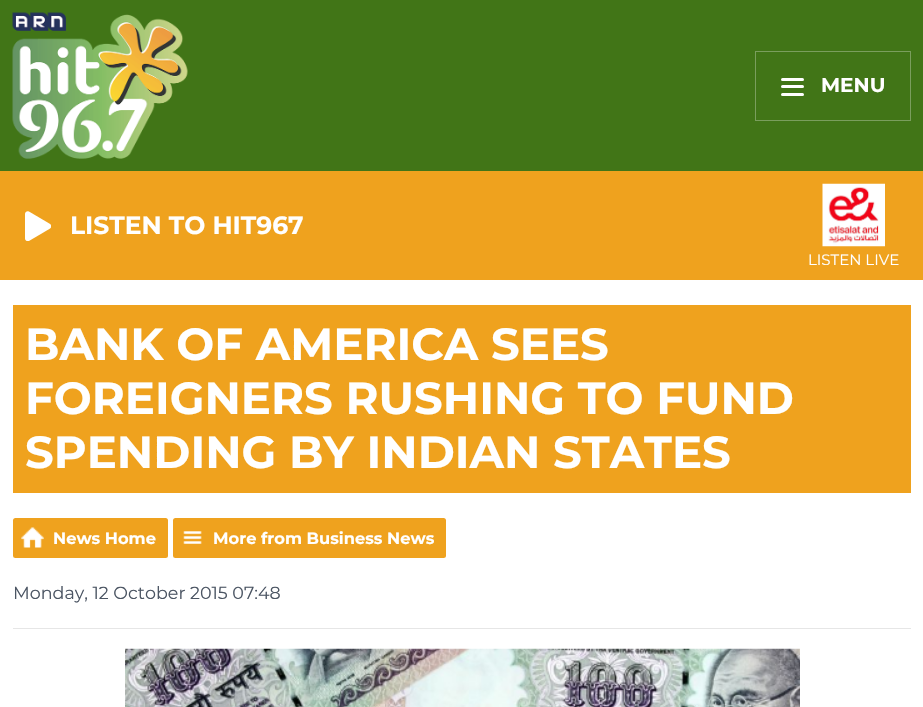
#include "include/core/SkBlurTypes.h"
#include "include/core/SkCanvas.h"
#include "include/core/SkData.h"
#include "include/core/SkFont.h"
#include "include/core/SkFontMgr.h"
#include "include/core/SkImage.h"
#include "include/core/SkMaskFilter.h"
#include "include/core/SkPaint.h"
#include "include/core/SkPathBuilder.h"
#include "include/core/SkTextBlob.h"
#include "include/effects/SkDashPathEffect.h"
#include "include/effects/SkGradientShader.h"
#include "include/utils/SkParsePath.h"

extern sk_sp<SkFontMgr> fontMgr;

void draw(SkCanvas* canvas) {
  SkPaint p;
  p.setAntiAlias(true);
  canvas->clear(SK_ColorWHITE);
  p.setColor(SkColorSetRGB(65, 117, 23));
  canvas->drawRect(SkRect::MakeLTRB(0, 0, 923, 171), p);
  canvas->drawImageRect(SkImages::DeferredFromEncodedData(SkData::MakeFromFileName("images/1.png")), SkRect::MakeLTRB(12, 12, 188, 159), SkSamplingOptions());
  p.setStyle(SkPaint::kStroke_Style);
  p.setStrokeWidth(1);
  p.setColor(SkColorSetRGB(122, 158, 93));
  canvas->drawRect(SkRect::MakeLTRB(755.5f, 51.5f, 910.5f, 120.5f), p);
  p.setStyle(SkPaint::kFill_Style);
  p.setColor(SK_ColorWHITE);
  canvas->drawRoundRect(SkRect::MakeLTRB(781, 78, 804, 81), 1.5f, 1.5f, p);
  canvas->drawRoundRect(SkRect::MakeLTRB(781, 85, 804, 88), 1.5f, 1.5f, p);
  canvas->drawRoundRect(SkRect::MakeLTRB(781, 93, 804, 96), 1.5f, 1.5f, p);
  p.setColor(SkColorSetRGB(239, 162, 30));
  canvas->drawRect(SkRect::MakeLTRB(0, 171, 923, 280), p);
  canvas->drawImageRect(SkImages::DeferredFromEncodedData(SkData::MakeFromFileName("images/2.png")), SkRect::MakeLTRB(25, 211, 51, 241), SkSamplingOptions());
  canvas->drawImageRect(SkImages::DeferredFromEncodedData(SkData::MakeFromFileName("images/3.png")), SkRect::MakeLTRB(822, 183, 885, 247), SkSamplingOptions());
  canvas->drawRect(SkRect::MakeLTRB(13, 305, 911, 493), p);
  canvas->drawRoundRect(SkRect::MakeLTRB(13, 518, 168, 558), 2.5f, 2.5f, p);
  canvas->drawImageRect(SkImages::DeferredFromEncodedData(SkData::MakeFromFileName("images/4.png")), SkRect::MakeLTRB(21, 527, 44, 548), SkSamplingOptions());
  canvas->drawRoundRect(SkRect::MakeLTRB(173, 518, 446, 558), 2.5f, 2.5f, p);
  canvas->drawImageRect(SkImages::DeferredFromEncodedData(SkData::MakeFromFileName("images/5.png")), SkRect::MakeLTRB(183, 531, 202, 544), SkSamplingOptions());
  p.setColor(SkColorSetRGB(230, 230, 230));
  canvas->drawRect(SkRect::MakeLTRB(13, 628, 911, 629), p);
  canvas->drawImageRect(SkImages::DeferredFromEncodedData(SkData::MakeFromFileName("images/6.png")), SkRect::MakeLTRB(125, 648, 800, 707), SkSamplingOptions());
  SkFont font1(fontMgr->matchFamilyStyle("Montserrat", SkFontStyle::Bold()), 20);
  font1.setSubpixel(true);
  p.setColor(SK_ColorWHITE);
  canvas->drawString("MENU", 821, 92, font1, p);
  SkFont font2(fontMgr->matchFamilyStyle("Montserrat", SkFontStyle::Bold()), 25);
  font2.setSubpixel(true);
  canvas->drawString("LISTEN TO HIT967", 70, 234, font2, p);
  SkFont font3(fontMgr->matchFamilyStyle("Montserrat", SkFontStyle::Normal()), 15);
  font3.setSubpixel(true);
  canvas->drawString("LISTEN LIVE", 808, 265, font3, p);
  SkFont font4(fontMgr->matchFamilyStyle("Montserrat", SkFontStyle::Bold()), 45);
  font4.setSubpixel(true);
  canvas->drawString("BANK OF AMERICA SEES", 25, 360, font4, p);
  canvas->drawString("FOREIGNERS RUSHING TO FUND", 25, 414, font4, p);
  canvas->drawString("SPENDING BY INDIAN STATES", 25, 468, font4, p);
  SkFont font5(fontMgr->matchFamilyStyle("Montserrat", SkFontStyle::Bold()), 16.25f);
  font5.setSubpixel(true);
  canvas->drawString("News Home", 53, 544, font5, p);
  canvas->drawString("More from Business News", 213, 544, font5, p);
  SkFont font6(fontMgr->matchFamilyStyle("Montserrat", SkFontStyle::Normal()), 17.5f);
  font6.setSubpixel(true);
  p.setColor(SkColorSetRGB(75, 85, 99));
  canvas->drawString("Monday, 12 October 2015 07:48", 13, 599, font6, p);
}
